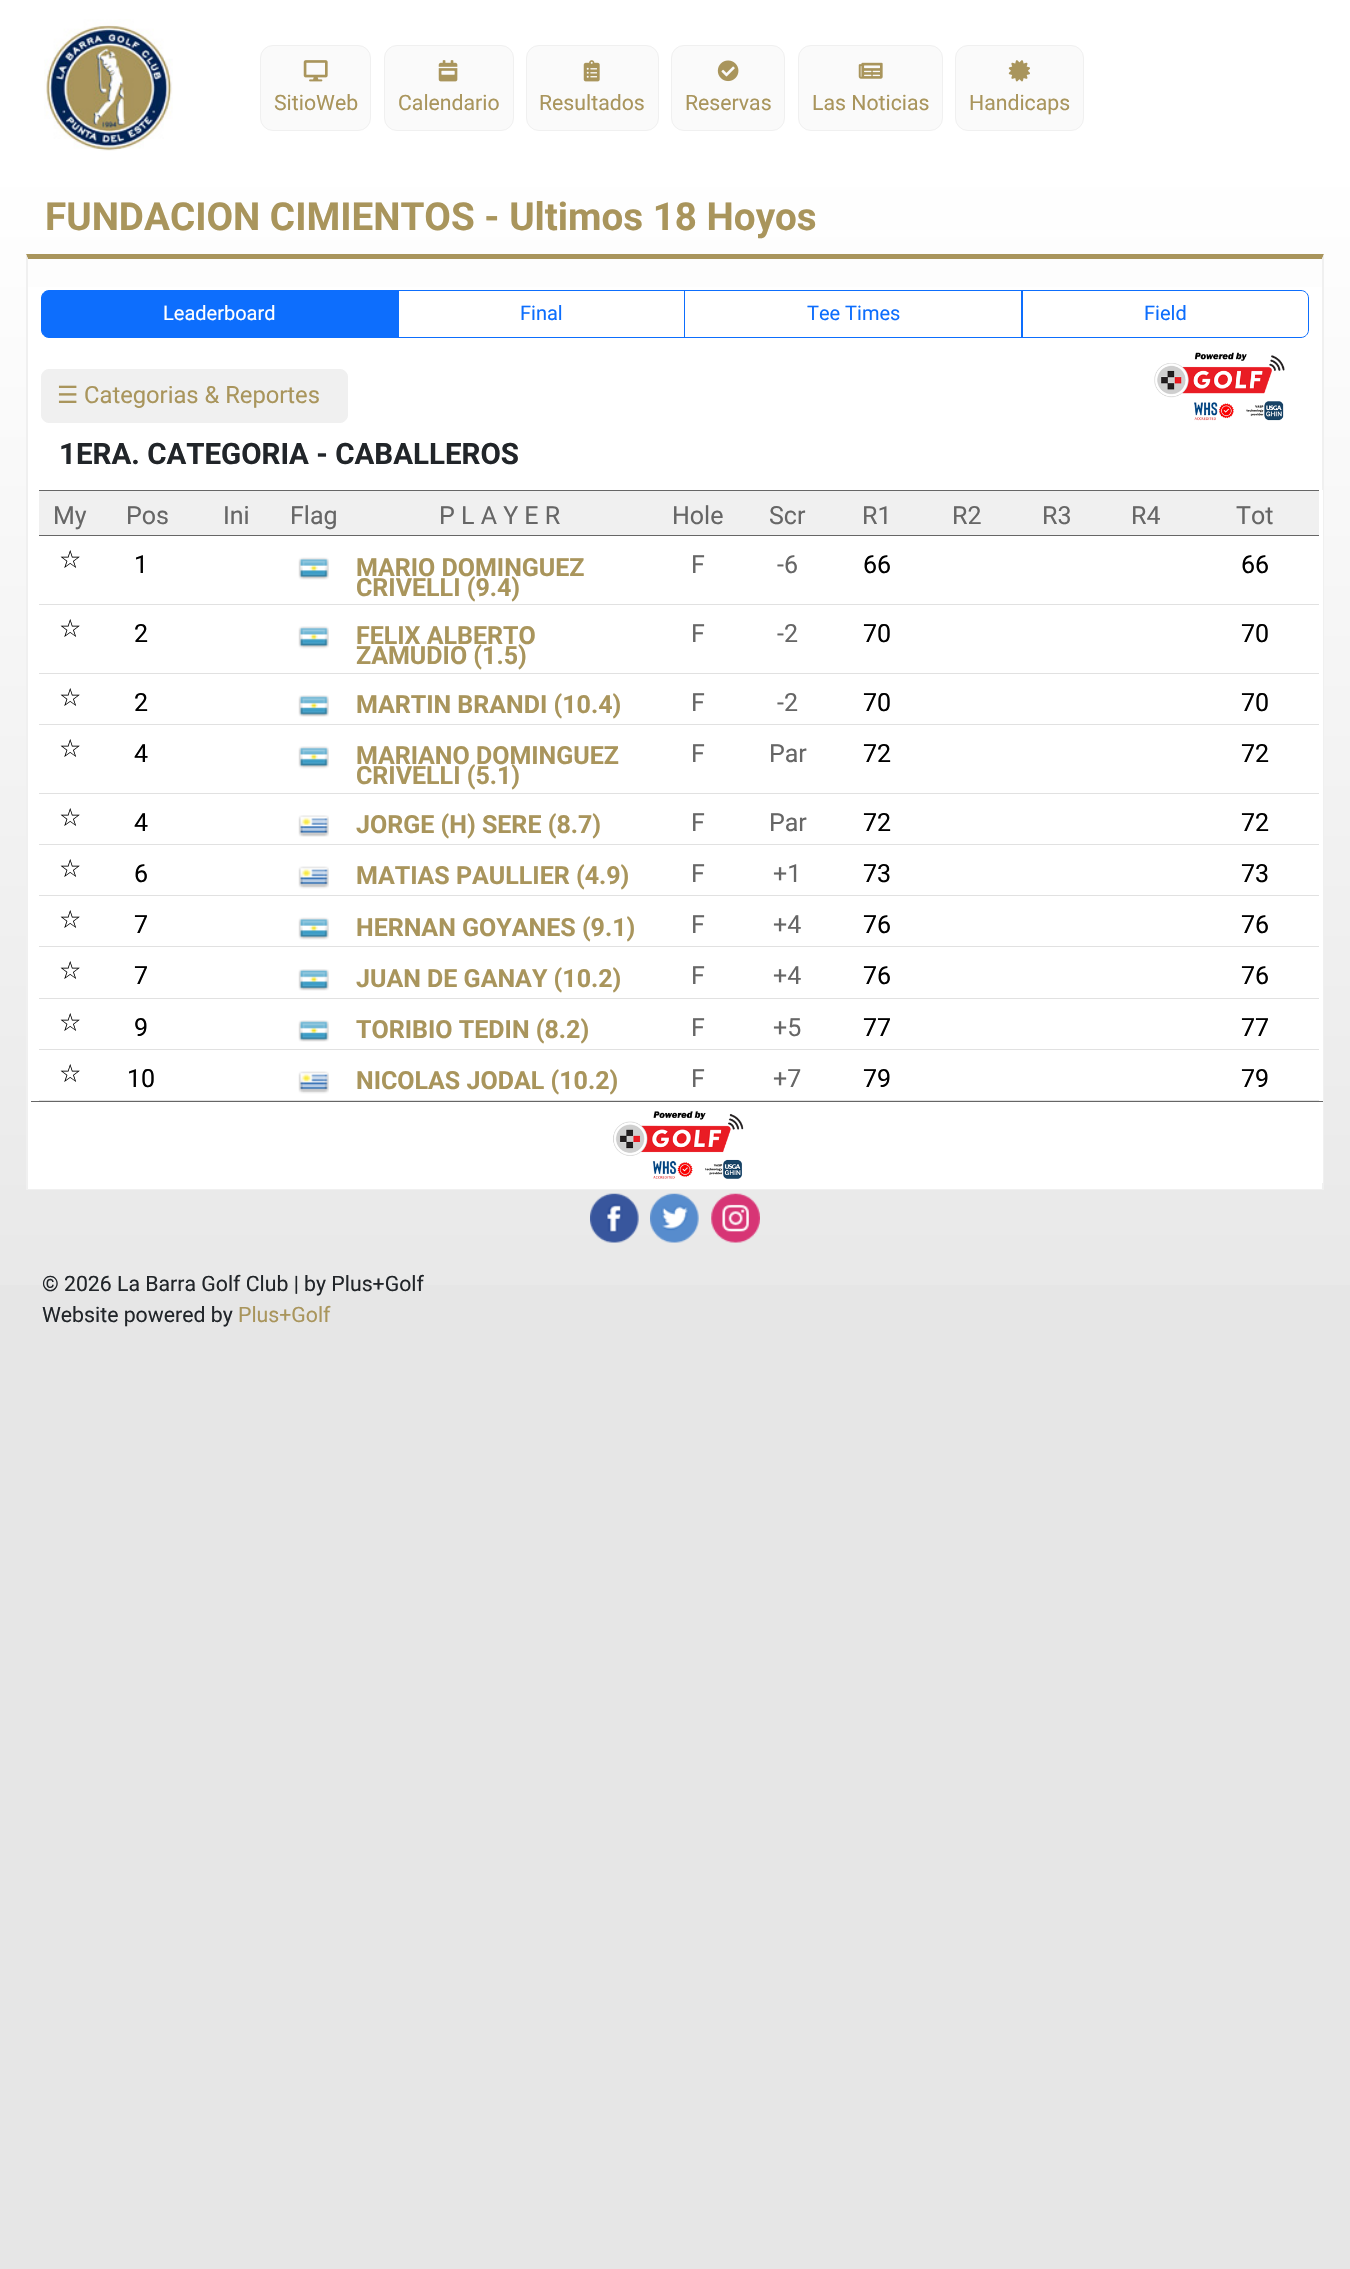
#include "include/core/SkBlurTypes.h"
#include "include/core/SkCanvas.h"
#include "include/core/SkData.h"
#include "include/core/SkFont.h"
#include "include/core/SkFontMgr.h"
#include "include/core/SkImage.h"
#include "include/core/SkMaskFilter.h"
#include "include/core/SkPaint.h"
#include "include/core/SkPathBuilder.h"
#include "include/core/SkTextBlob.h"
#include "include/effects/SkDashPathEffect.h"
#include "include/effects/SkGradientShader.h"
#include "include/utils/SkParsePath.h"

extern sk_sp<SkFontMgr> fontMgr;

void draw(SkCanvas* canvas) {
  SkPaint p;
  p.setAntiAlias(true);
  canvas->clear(SkColorSetRGB(230, 230, 230));
  p.setColor(SK_ColorWHITE);
  canvas->drawRect(SkRect::MakeLTRB(0, 0, 1350, 163), p);
  canvas->drawImageRect(SkImages::DeferredFromEncodedData(SkData::MakeFromFileName("images/1.png")), SkRect::MakeLTRB(44, 19, 173, 151), SkSamplingOptions());
  p.setColor(SkColorSetRGB(250, 250, 250));
  canvas->drawRoundRect(SkRect::MakeLTRB(260.5f, 45.5f, 370.5f, 130.5f), 12.5f, 12.5f, p);
  p.setStyle(SkPaint::kStroke_Style);
  p.setStrokeWidth(1);
  p.setColor(SkColorSetRGB(240, 240, 240));
  canvas->drawRoundRect(SkRect::MakeLTRB(260.5f, 45.5f, 370.5f, 130.5f), 12.5f, 12.5f, p);
  canvas->drawImageRect(SkImages::DeferredFromEncodedData(SkData::MakeFromFileName("images/2.png")), SkRect::MakeLTRB(303, 60, 328, 82), SkSamplingOptions());
  p.setStyle(SkPaint::kFill_Style);
  p.setColor(SkColorSetRGB(250, 250, 250));
  canvas->drawRoundRect(SkRect::MakeLTRB(384.5f, 45.5f, 513.5f, 130.5f), 12.5f, 12.5f, p);
  p.setStyle(SkPaint::kStroke_Style);
  p.setColor(SkColorSetRGB(240, 240, 240));
  canvas->drawRoundRect(SkRect::MakeLTRB(384.5f, 45.5f, 513.5f, 130.5f), 12.5f, 12.5f, p);
  canvas->drawImageRect(SkImages::DeferredFromEncodedData(SkData::MakeFromFileName("images/3.png")), SkRect::MakeLTRB(438, 60, 458, 82), SkSamplingOptions());
  p.setStyle(SkPaint::kFill_Style);
  p.setColor(SkColorSetRGB(250, 250, 250));
  canvas->drawRoundRect(SkRect::MakeLTRB(526.5f, 45.5f, 658.5f, 130.5f), 12.5f, 12.5f, p);
  p.setStyle(SkPaint::kStroke_Style);
  p.setColor(SkColorSetRGB(240, 240, 240));
  canvas->drawRoundRect(SkRect::MakeLTRB(526.5f, 45.5f, 658.5f, 130.5f), 12.5f, 12.5f, p);
  canvas->drawImageRect(SkImages::DeferredFromEncodedData(SkData::MakeFromFileName("images/4.png")), SkRect::MakeLTRB(583, 60, 600, 82), SkSamplingOptions());
  p.setStyle(SkPaint::kFill_Style);
  p.setColor(SkColorSetRGB(250, 250, 250));
  canvas->drawRoundRect(SkRect::MakeLTRB(671.5f, 45.5f, 784.5f, 130.5f), 12.5f, 12.5f, p);
  p.setStyle(SkPaint::kStroke_Style);
  p.setColor(SkColorSetRGB(240, 240, 240));
  canvas->drawRoundRect(SkRect::MakeLTRB(671.5f, 45.5f, 784.5f, 130.5f), 12.5f, 12.5f, p);
  canvas->drawImageRect(SkImages::DeferredFromEncodedData(SkData::MakeFromFileName("images/5.png")), SkRect::MakeLTRB(717, 60, 739, 82), SkSamplingOptions());
  p.setStyle(SkPaint::kFill_Style);
  p.setColor(SkColorSetRGB(250, 250, 250));
  canvas->drawRoundRect(SkRect::MakeLTRB(798.5f, 45.5f, 942.5f, 130.5f), 12.5f, 12.5f, p);
  p.setStyle(SkPaint::kStroke_Style);
  p.setColor(SkColorSetRGB(240, 240, 240));
  canvas->drawRoundRect(SkRect::MakeLTRB(798.5f, 45.5f, 942.5f, 130.5f), 12.5f, 12.5f, p);
  canvas->drawImageRect(SkImages::DeferredFromEncodedData(SkData::MakeFromFileName("images/6.png")), SkRect::MakeLTRB(858, 62, 883, 79), SkSamplingOptions());
  p.setStyle(SkPaint::kFill_Style);
  p.setColor(SkColorSetRGB(250, 250, 250));
  canvas->drawRoundRect(SkRect::MakeLTRB(955.5f, 45.5f, 1083.5f, 130.5f), 12.5f, 12.5f, p);
  p.setStyle(SkPaint::kStroke_Style);
  p.setColor(SkColorSetRGB(240, 240, 240));
  canvas->drawRoundRect(SkRect::MakeLTRB(955.5f, 45.5f, 1083.5f, 130.5f), 12.5f, 12.5f, p);
  canvas->drawImageRect(SkImages::DeferredFromEncodedData(SkData::MakeFromFileName("images/7.png")), SkRect::MakeLTRB(1008, 60, 1030, 82), SkSamplingOptions());
  p.setStyle(SkPaint::kFill_Style);
  {
    const SkColor colors[] = {SK_ColorWHITE, SkColorSetRGB(230, 230, 230)};
    const float stops[] = {0, 1};
    const SkPoint ends[] = {{675, 162}, {675, 1410}};
    p.setShader(SkGradientShader::MakeLinear(ends, colors, stops, 2, SkTileMode::kClamp));
    p.setAlpha(255);
  }
  canvas->drawRect(SkRect::MakeLTRB(0, 163, 1350, 1285), p);
  p.setShader(nullptr);
  p.setColor(SK_ColorWHITE);
  canvas->drawRect(SkRect::MakeLTRB(28, 287, 1322, 1189), p);
  p.setColor(SkColorSetRGB(169, 149, 92));
  canvas->drawPath(SkPathBuilder().moveTo(26, 254).lineTo(1324, 254).lineTo(1322, 259).lineTo(28, 259).close().detach(), p);
  p.setColor(SkColorSetRGB(240, 240, 240));
  canvas->drawPath(SkPathBuilder().moveTo(1324, 254).lineTo(1324, 1190).lineTo(1322, 1189).lineTo(1322, 259).close().detach(), p);
  canvas->drawRect(SkRect::MakeLTRB(26, 1189, 1324, 1190), p);
  canvas->drawPath(SkPathBuilder().moveTo(26, 1190).lineTo(26, 254).lineTo(28, 259).lineTo(28, 1189).close().detach(), p);
  p.setStyle(SkPaint::kStroke_Style);
  p.setColor(SkColorSetRGB(13, 110, 253));
  canvas->drawRect(SkRect::MakeLTRB(398.5f, 290.5f, 684.5f, 337.5f), p);
  p.setStyle(SkPaint::kFill_Style);
  canvas->drawPath(SkPathBuilder().moveTo(49, 290.5f).lineTo(398.5f, 290.5f).lineTo(398.5f, 337.5f).lineTo(49, 337.5f).cubicTo(45, 337.5f, 41.5f, 334, 41.5f, 330).lineTo(41.5f, 298).cubicTo(41.5f, 294, 45, 290.5f, 49, 290.5f).close().detach(), p);
  p.setStyle(SkPaint::kStroke_Style);
  canvas->drawPath(SkPathBuilder().moveTo(49, 290.5f).lineTo(398.5f, 290.5f).lineTo(398.5f, 337.5f).lineTo(49, 337.5f).cubicTo(45, 337.5f, 41.5f, 334, 41.5f, 330).lineTo(41.5f, 298).cubicTo(41.5f, 294, 45, 290.5f, 49, 290.5f).close().detach(), p);
  canvas->drawRect(SkRect::MakeLTRB(684.5f, 290.5f, 1022.5f, 337.5f), p);
  canvas->drawPath(SkPathBuilder().moveTo(1021.5f, 290.5f).lineTo(1301, 290.5f).cubicTo(1305, 290.5f, 1308.5f, 294, 1308.5f, 298).lineTo(1308.5f, 330).cubicTo(1308.5f, 334, 1305, 337.5f, 1301, 337.5f).lineTo(1021.5f, 337.5f).close().detach(), p);
  p.setStyle(SkPaint::kFill_Style);
  p.setColor(SkColorSetRGB(240, 240, 240));
  canvas->drawRoundRect(SkRect::MakeLTRB(41.5f, 369.5f, 347.5f, 422.5f), 7.5f, 7.5f, p);
  p.setStyle(SkPaint::kStroke_Style);
  canvas->drawRoundRect(SkRect::MakeLTRB(41.5f, 369.5f, 347.5f, 422.5f), 7.5f, 7.5f, p);
  canvas->drawImageRect(SkImages::DeferredFromEncodedData(SkData::MakeFromFileName("images/8.png")), SkRect::MakeLTRB(1154, 352, 1285, 421), SkSamplingOptions());
  p.setStyle(SkPaint::kFill_Style);
  p.setColor(SK_ColorWHITE);
  canvas->drawRect(SkRect::MakeLTRB(1322, 490, 1323, 1183), p);
  p.setColor(SkColorSetRGB(240, 240, 240));
  canvas->drawRect(SkRect::MakeLTRB(39, 491, 1319, 535), p);
  p.setColor(SkColorSetRGB(102, 102, 102));
  canvas->drawRect(SkRect::MakeLTRB(39, 490, 1319, 491), p);
  canvas->drawRect(SkRect::MakeLTRB(39, 535, 1319, 536), p);
  p.setColor(SkColorSetRGB(225, 225, 225));
  canvas->drawRect(SkRect::MakeLTRB(39, 604, 1319, 605), p);
  canvas->drawImageRect(SkImages::DeferredFromEncodedData(SkData::MakeFromFileName("images/9.png")), SkRect::MakeLTRB(298, 557, 329, 580), SkSamplingOptions());
  canvas->drawRect(SkRect::MakeLTRB(39, 673, 1319, 674), p);
  canvas->drawImageRect(SkImages::DeferredFromEncodedData(SkData::MakeFromFileName("images/10.png")), SkRect::MakeLTRB(298, 626, 329, 649), SkSamplingOptions());
  canvas->drawRect(SkRect::MakeLTRB(39, 724, 1319, 725), p);
  canvas->drawImageRect(SkImages::DeferredFromEncodedData(SkData::MakeFromFileName("images/11.png")), SkRect::MakeLTRB(298, 695, 329, 717), SkSamplingOptions());
  canvas->drawRect(SkRect::MakeLTRB(39, 793, 1319, 794), p);
  canvas->drawImageRect(SkImages::DeferredFromEncodedData(SkData::MakeFromFileName("images/10.png")), SkRect::MakeLTRB(298, 746, 329, 769), SkSamplingOptions());
  canvas->drawRect(SkRect::MakeLTRB(39, 844, 1319, 845), p);
  canvas->drawImageRect(SkImages::DeferredFromEncodedData(SkData::MakeFromFileName("images/12.png")), SkRect::MakeLTRB(298, 815, 329, 837), SkSamplingOptions());
  canvas->drawRect(SkRect::MakeLTRB(39, 895, 1319, 896), p);
  canvas->drawImageRect(SkImages::DeferredFromEncodedData(SkData::MakeFromFileName("images/13.png")), SkRect::MakeLTRB(298, 866, 329, 889), SkSamplingOptions());
  canvas->drawRect(SkRect::MakeLTRB(39, 946, 1319, 947), p);
  canvas->drawImageRect(SkImages::DeferredFromEncodedData(SkData::MakeFromFileName("images/9.png")), SkRect::MakeLTRB(298, 917, 329, 940), SkSamplingOptions());
  canvas->drawRect(SkRect::MakeLTRB(39, 998, 1319, 999), p);
  canvas->drawImageRect(SkImages::DeferredFromEncodedData(SkData::MakeFromFileName("images/14.png")), SkRect::MakeLTRB(298, 969, 329, 991), SkSamplingOptions());
  canvas->drawRect(SkRect::MakeLTRB(39, 1049, 1319, 1050), p);
  canvas->drawImageRect(SkImages::DeferredFromEncodedData(SkData::MakeFromFileName("images/11.png")), SkRect::MakeLTRB(298, 1020, 329, 1042), SkSamplingOptions());
  canvas->drawRect(SkRect::MakeLTRB(39, 1100, 1319, 1101), p);
  canvas->drawImageRect(SkImages::DeferredFromEncodedData(SkData::MakeFromFileName("images/13.png")), SkRect::MakeLTRB(298, 1071, 329, 1094), SkSamplingOptions());
  p.setColor(SkColorSetRGB(102, 102, 102));
  canvas->drawRect(SkRect::MakeLTRB(31, 1101, 1323, 1102), p);
  canvas->drawImageRect(SkImages::DeferredFromEncodedData(SkData::MakeFromFileName("images/15.png")), SkRect::MakeLTRB(613, 1111, 744, 1179), SkSamplingOptions());
  canvas->drawImageRect(SkImages::DeferredFromEncodedData(SkData::MakeFromFileName("images/16.png")), SkRect::MakeLTRB(590, 1193, 639, 1243), SkSamplingOptions());
  canvas->drawImageRect(SkImages::DeferredFromEncodedData(SkData::MakeFromFileName("images/17.png")), SkRect::MakeLTRB(650, 1193, 699, 1243), SkSamplingOptions());
  canvas->drawImageRect(SkImages::DeferredFromEncodedData(SkData::MakeFromFileName("images/18.png")), SkRect::MakeLTRB(711, 1193, 760, 1243), SkSamplingOptions());
  SkFont font1(fontMgr->matchFamilyStyle("Roboto", SkFontStyle::Normal()), 21.25f);
  font1.setSubpixel(true);
  p.setColor(SkColorSetRGB(169, 149, 92));
  canvas->drawString("SitioWeb", 274, 110, font1, p);
  canvas->drawString("Calendario", 398, 110, font1, p);
  canvas->drawString("Resultados", 539, 110, font1, p);
  canvas->drawString("Reservas", 685, 110, font1, p);
  canvas->drawString("Las Noticias", 812, 110, font1, p);
  canvas->drawString("Handicaps", 969, 110, font1, p);
  SkFont font2(fontMgr->matchFamilyStyle("Roboto", SkFontStyle::Bold()), 38.6f);
  font2.setSubpixel(true);
  canvas->drawString("FUNDACION CIMIENTOS - Ultimos 18 Hoyos", 45, 230, font2, p);
  SkFont font3(fontMgr->matchFamilyStyle("Roboto", SkFontStyle::Normal()), 20);
  font3.setSubpixel(true);
  p.setColor(SK_ColorWHITE);
  canvas->drawString("Leaderboard", 163, 320, font3, p);
  p.setColor(SkColorSetRGB(13, 110, 253));
  canvas->drawString("Final", 520, 320, font3, p);
  canvas->drawString("Tee Times", 807, 320, font3, p);
  canvas->drawString("Field", 1144, 320, font3, p);
  SkFont font4(fontMgr->matchFamilyStyle("DejaVu Sans", SkFontStyle::Normal()), 23.75f);
  font4.setSubpixel(true);
  p.setColor(SkColorSetRGB(169, 149, 92));
  canvas->drawString("☰", 57, 403, font4, p);
  SkFont font5(fontMgr->matchFamilyStyle("Roboto", SkFontStyle::Normal()), 23.75f);
  font5.setSubpixel(true);
  canvas->drawString("Categorias & Reportes", 84, 403, font5, p);
  SkFont font6(fontMgr->matchFamilyStyle("Roboto", SkFontStyle::Bold()), 29.5f);
  font6.setSubpixel(true);
  p.setColor(SkColorSetRGB(33, 37, 41));
  canvas->drawString("1ERA. CATEGORIA - CABALLEROS", 59, 464, font6, p);
  SkFont font7(fontMgr->matchFamilyStyle("Roboto", SkFontStyle::Normal()), 25);
  font7.setSubpixel(true);
  p.setColor(SkColorSetRGB(102, 102, 102));
  canvas->drawString("My", 53, 524, font7, p);
  canvas->drawString("Pos", 126, 524, font7, p);
  canvas->drawString("Ini", 223, 524, font7, p);
  canvas->drawString("Flag", 290, 524, font7, p);
  canvas->drawString("P L A Y E R", 439, 524, font7, p);
  canvas->drawString("Hole", 672, 524, font7, p);
  canvas->drawString("Scr", 769, 524, font7, p);
  canvas->drawString("R1", 862, 524, font7, p);
  canvas->drawString("R2", 952, 524, font7, p);
  canvas->drawString("R3", 1042, 524, font7, p);
  canvas->drawString("R4", 1131, 524, font7, p);
  canvas->drawString("Tot", 1236, 524, font7, p);
  SkFont font8(fontMgr->matchFamilyStyle("DejaVu Sans", SkFontStyle::Normal()), 25);
  font8.setSubpixel(true);
  p.setColor(SK_ColorBLACK);
  canvas->drawString("☆", 59, 568, font8, p);
  canvas->drawString("1", 134, 573, font7, p);
  SkFont font9(fontMgr->matchFamilyStyle("Roboto", SkFontStyle::Bold()), 25);
  font9.setSubpixel(true);
  p.setColor(SkColorSetRGB(169, 149, 92));
  canvas->drawString("MARIO DOMINGUEZ", 356, 576, font9, p);
  canvas->drawString("CRIVELLI (9.4)", 356, 596, font9, p);
  p.setColor(SkColorSetRGB(102, 102, 102));
  canvas->drawString("F", 691, 573, font7, p);
  canvas->drawString("-6", 777, 573, font7, p);
  p.setColor(SK_ColorBLACK);
  canvas->drawString("66", 863, 573, font7, p);
  canvas->drawString("66", 1241, 573, font7, p);
  canvas->drawString("☆", 59, 637, font8, p);
  canvas->drawString("2", 134, 642, font7, p);
  p.setColor(SkColorSetRGB(169, 149, 92));
  canvas->drawString("FELIX ALBERTO", 356, 644, font9, p);
  canvas->drawString("ZAMUDIO (1.5)", 356, 664, font9, p);
  p.setColor(SkColorSetRGB(102, 102, 102));
  canvas->drawString("F", 691, 642, font7, p);
  canvas->drawString("-2", 777, 642, font7, p);
  p.setColor(SK_ColorBLACK);
  canvas->drawString("70", 863, 642, font7, p);
  canvas->drawString("70", 1241, 642, font7, p);
  canvas->drawString("☆", 59, 706, font8, p);
  canvas->drawString("2", 134, 711, font7, p);
  p.setColor(SkColorSetRGB(169, 149, 92));
  canvas->drawString("MARTIN BRANDI (10.4)", 356, 713, font9, p);
  p.setColor(SkColorSetRGB(102, 102, 102));
  canvas->drawString("F", 691, 711, font7, p);
  canvas->drawString("-2", 777, 711, font7, p);
  p.setColor(SK_ColorBLACK);
  canvas->drawString("70", 863, 711, font7, p);
  canvas->drawString("70", 1241, 711, font7, p);
  canvas->drawString("☆", 59, 757, font8, p);
  canvas->drawString("4", 134, 762, font7, p);
  p.setColor(SkColorSetRGB(169, 149, 92));
  canvas->drawString("MARIANO DOMINGUEZ", 356, 764, font9, p);
  canvas->drawString("CRIVELLI (5.1)", 356, 784, font9, p);
  p.setColor(SkColorSetRGB(102, 102, 102));
  canvas->drawString("F", 691, 762, font7, p);
  canvas->drawString("Par", 769, 762, font7, p);
  p.setColor(SK_ColorBLACK);
  canvas->drawString("72", 863, 762, font7, p);
  canvas->drawString("72", 1241, 762, font7, p);
  canvas->drawString("☆", 59, 826, font8, p);
  canvas->drawString("4", 134, 831, font7, p);
  p.setColor(SkColorSetRGB(169, 149, 92));
  canvas->drawString("JORGE (H) SERE (8.7)", 356, 833, font9, p);
  p.setColor(SkColorSetRGB(102, 102, 102));
  canvas->drawString("F", 691, 831, font7, p);
  canvas->drawString("Par", 769, 831, font7, p);
  p.setColor(SK_ColorBLACK);
  canvas->drawString("72", 863, 831, font7, p);
  canvas->drawString("72", 1241, 831, font7, p);
  canvas->drawString("☆", 59, 877, font8, p);
  canvas->drawString("6", 134, 882, font7, p);
  p.setColor(SkColorSetRGB(169, 149, 92));
  canvas->drawString("MATIAS PAULLIER (4.9)", 356, 884, font9, p);
  p.setColor(SkColorSetRGB(102, 102, 102));
  canvas->drawString("F", 691, 882, font7, p);
  canvas->drawString("+1", 773, 882, font7, p);
  p.setColor(SK_ColorBLACK);
  canvas->drawString("73", 863, 882, font7, p);
  canvas->drawString("73", 1241, 882, font7, p);
  canvas->drawString("☆", 59, 928, font8, p);
  canvas->drawString("7", 134, 933, font7, p);
  p.setColor(SkColorSetRGB(169, 149, 92));
  canvas->drawString("HERNAN GOYANES (9.1)", 356, 936, font9, p);
  p.setColor(SkColorSetRGB(102, 102, 102));
  canvas->drawString("F", 691, 933, font7, p);
  canvas->drawString("+4", 773, 933, font7, p);
  p.setColor(SK_ColorBLACK);
  canvas->drawString("76", 863, 933, font7, p);
  canvas->drawString("76", 1241, 933, font7, p);
  canvas->drawString("☆", 59, 979, font8, p);
  canvas->drawString("7", 134, 984, font7, p);
  p.setColor(SkColorSetRGB(169, 149, 92));
  canvas->drawString("JUAN DE GANAY (10.2)", 356, 987, font9, p);
  p.setColor(SkColorSetRGB(102, 102, 102));
  canvas->drawString("F", 691, 984, font7, p);
  canvas->drawString("+4", 773, 984, font7, p);
  p.setColor(SK_ColorBLACK);
  canvas->drawString("76", 863, 984, font7, p);
  canvas->drawString("76", 1241, 984, font7, p);
  canvas->drawString("☆", 59, 1031, font8, p);
  canvas->drawString("9", 134, 1036, font7, p);
  p.setColor(SkColorSetRGB(169, 149, 92));
  canvas->drawString("TORIBIO TEDIN (8.2)", 356, 1038, font9, p);
  p.setColor(SkColorSetRGB(102, 102, 102));
  canvas->drawString("F", 691, 1036, font7, p);
  canvas->drawString("+5", 773, 1036, font7, p);
  p.setColor(SK_ColorBLACK);
  canvas->drawString("77", 863, 1036, font7, p);
  canvas->drawString("77", 1241, 1036, font7, p);
  canvas->drawString("☆", 59, 1082, font8, p);
  canvas->drawString("10", 127, 1087, font7, p);
  p.setColor(SkColorSetRGB(169, 149, 92));
  canvas->drawString("NICOLAS JODAL (10.2)", 356, 1089, font9, p);
  p.setColor(SkColorSetRGB(102, 102, 102));
  canvas->drawString("F", 691, 1087, font7, p);
  canvas->drawString("+7", 773, 1087, font7, p);
  p.setColor(SK_ColorBLACK);
  canvas->drawString("79", 863, 1087, font7, p);
  canvas->drawString("79", 1241, 1087, font7, p);
  p.setColor(SkColorSetRGB(33, 37, 41));
  canvas->drawString("© 2026 La Barra Golf Club | by Plus+Golf", 42, 1291, font1, p);
  canvas->drawString("Website powered by", 42, 1322, font1, p);
  p.setColor(SkColorSetRGB(169, 149, 92));
  canvas->drawString("Plus+Golf", 238, 1322, font1, p);
}
